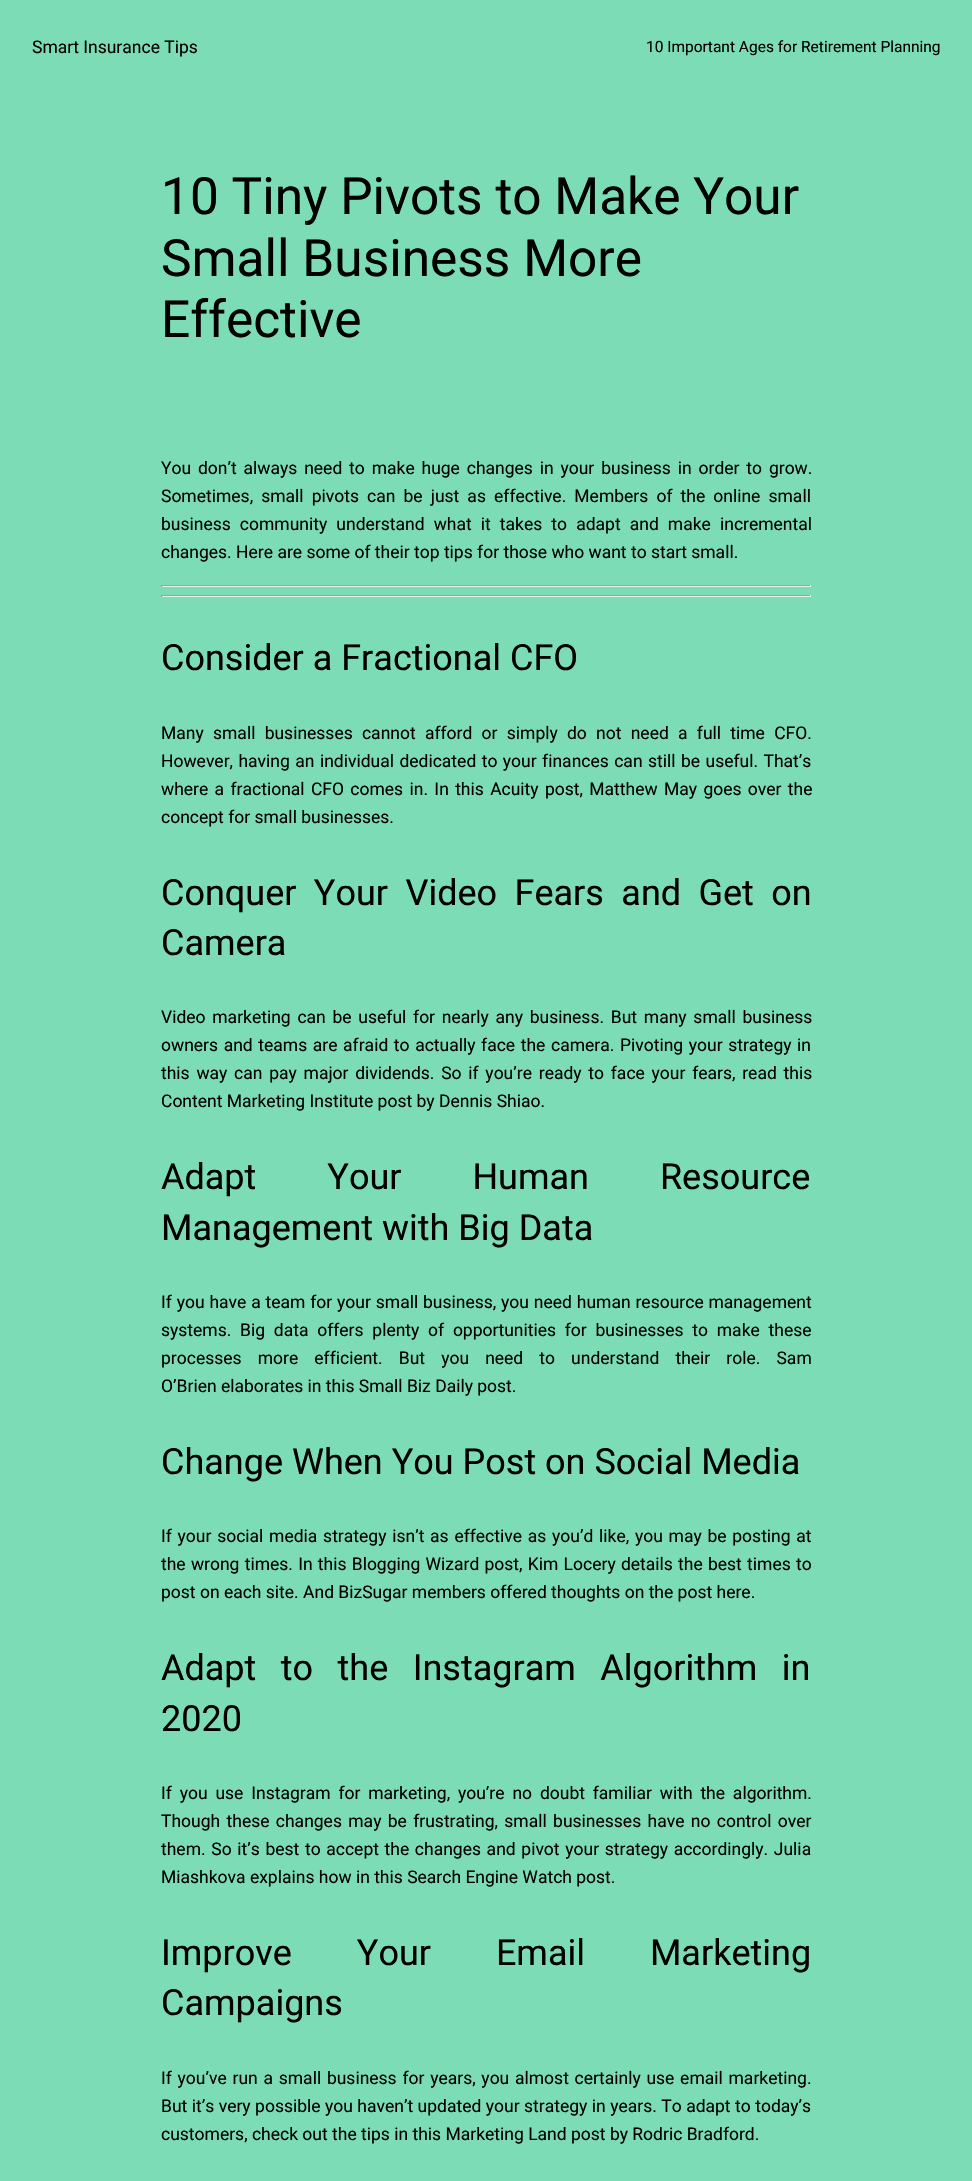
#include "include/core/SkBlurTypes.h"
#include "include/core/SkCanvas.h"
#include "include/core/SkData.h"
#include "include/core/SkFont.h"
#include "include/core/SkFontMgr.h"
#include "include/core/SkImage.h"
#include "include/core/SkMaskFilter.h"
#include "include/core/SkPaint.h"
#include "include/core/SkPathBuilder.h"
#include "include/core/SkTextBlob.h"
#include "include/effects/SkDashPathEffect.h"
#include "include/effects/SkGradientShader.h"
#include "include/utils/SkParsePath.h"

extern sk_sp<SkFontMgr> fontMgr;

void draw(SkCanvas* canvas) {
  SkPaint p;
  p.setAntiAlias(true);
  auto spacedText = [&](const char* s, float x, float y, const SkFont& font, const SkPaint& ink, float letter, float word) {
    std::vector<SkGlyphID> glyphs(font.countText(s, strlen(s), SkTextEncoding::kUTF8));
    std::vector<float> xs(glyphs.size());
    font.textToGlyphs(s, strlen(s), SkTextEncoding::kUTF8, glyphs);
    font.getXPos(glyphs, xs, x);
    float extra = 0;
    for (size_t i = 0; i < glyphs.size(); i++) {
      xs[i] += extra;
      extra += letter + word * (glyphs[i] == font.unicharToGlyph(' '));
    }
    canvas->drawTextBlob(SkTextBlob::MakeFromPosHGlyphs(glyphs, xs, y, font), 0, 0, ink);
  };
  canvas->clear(SkColorSetRGB(123, 220, 181));
  p.setColor(SkColorSetRGB(159, 159, 159));
  canvas->drawRect(SkRect::MakeLTRB(161, 585, 811, 586), p);
  p.setColor(SkColorSetRGB(238, 238, 238));
  canvas->drawRect(SkRect::MakeLTRB(810, 585, 811, 587), p);
  canvas->drawRect(SkRect::MakeLTRB(161, 586, 811, 587), p);
  p.setColor(SkColorSetRGB(159, 159, 159));
  canvas->drawRect(SkRect::MakeLTRB(161, 585, 162, 587), p);
  canvas->drawRect(SkRect::MakeLTRB(161, 595, 811, 596), p);
  p.setColor(SkColorSetRGB(238, 238, 238));
  canvas->drawRect(SkRect::MakeLTRB(810, 595, 811, 597), p);
  canvas->drawRect(SkRect::MakeLTRB(161, 596, 811, 597), p);
  p.setColor(SkColorSetRGB(159, 159, 159));
  canvas->drawRect(SkRect::MakeLTRB(161, 595, 162, 597), p);
  SkFont font1(fontMgr->matchFamilyStyle("Roboto", SkFontStyle::Normal()), 17.5f);
  font1.setSubpixel(true);
  p.setColor(SK_ColorBLACK);
  canvas->drawString("Smart Insurance Tips", 32, 53, font1, p);
  SkFont font2(fontMgr->matchFamilyStyle("Roboto", SkFontStyle::Normal()), 15.5f);
  font2.setSubpixel(true);
  canvas->drawString("10 Important Ages for Retirement Planning", 646, 52, font2, p);
  SkFont font3(fontMgr->matchFamilyStyle("Roboto", SkFontStyle::Normal()), 51.4f);
  font3.setSubpixel(true);
  canvas->drawString("10 Tiny Pivots to Make Your", 161, 214, font3, p);
  canvas->drawString("Small Business More", 161, 276, font3, p);
  canvas->drawString("Effective", 161, 337, font3, p);
  spacedText("You don’t always need to make huge changes in your business in order to grow.", 161, 474, font1, p, 0, 2.5f);
  spacedText("Sometimes, small pivots can be just as effective. Members of the online small", 161, 502, font1, p, 0, 3.75f);
  spacedText("business community understand what it takes to adapt and make incremental", 161, 530, font1, p, 0, 4.75f);
  canvas->drawString("changes. Here are some of their top tips for those who want to start small.", 161, 558, font1, p);
  SkFont font4(fontMgr->matchFamilyStyle("Roboto", SkFontStyle::Normal()), 36);
  font4.setSubpixel(true);
  canvas->drawString("Consider a Fractional CFO", 161, 670, font4, p);
  spacedText("Many small businesses cannot afford or simply do not need a full time CFO.", 161, 739, font1, p, 0, 4.9f);
  spacedText("However, having an individual dedicated to your finances can still be useful. That’s", 161, 767, font1, p, 0, 1.1f);
  spacedText("where a fractional CFO comes in. In this Acuity post, Matthew May goes over the", 161, 795, font1, p, 0, 2);
  canvas->drawString("concept for small businesses.", 161, 823, font1, p);
  spacedText("Conquer Your Video Fears and Get on", 161, 905, font4, p, 0, 8.5f);
  canvas->drawString("Camera", 161, 955, font4, p);
  spacedText("Video marketing can be useful for nearly any business. But many small business", 161, 1023, font1, p, 0, 2.4f);
  spacedText("owners and teams are afraid to actually face the camera. Pivoting your strategy in", 161, 1051, font1, p, 0, 1.25f);
  spacedText("this way can pay major dividends. So if you’re ready to face your fears, read this", 161, 1079, font1, p, 0, 2.4f);
  canvas->drawString("Content Marketing Institute post by Dennis Shiao.", 161, 1107, font1, p);
  spacedText("Adapt Your Human Resource", 161, 1189, font4, p, 0, 62);
  canvas->drawString("Management with Big Data", 161, 1240, font4, p);
  spacedText("If you have a team for your small business, you need human resource management", 161, 1308, font1, p, 0, 0.5f);
  spacedText("systems. Big data offers plenty of opportunities for businesses to make these", 161, 1336, font1, p, 0, 4.4f);
  spacedText("processes more efficient. But you need to understand their role. Sam", 161, 1364, font1, p, 0, 11.75f);
  canvas->drawString("O’Brien elaborates in this Small Biz Daily post.", 161, 1392, font1, p);
  canvas->drawString("Change When You Post on Social Media", 161, 1474, font4, p);
  spacedText("If your social media strategy isn’t as effective as you’d like, you may be posting at", 161, 1542, font1, p, 0, 1.4f);
  spacedText("the wrong times. In this Blogging Wizard post, Kim Locery details the best times to", 161, 1570, font1, p, 0, 0.9f);
  canvas->drawString("post on each site. And BizSugar members offered thoughts on the post here.", 161, 1598, font1, p);
  spacedText("Adapt to the Instagram Algorithm in", 161, 1680, font4, p, 0, 15.5f);
  canvas->drawString("2020", 161, 1731, font4, p);
  spacedText("If you use Instagram for marketing, you’re no doubt familiar with the algorithm.", 161, 1799, font1, p, 0, 3.5f);
  spacedText("Though these changes may be frustrating, small businesses have no control over", 161, 1827, font1, p, 0, 2);
  spacedText("them. So it’s best to accept the changes and pivot your strategy accordingly. Julia", 161, 1855, font1, p, 0, 1.3f);
  canvas->drawString("Miashkova explains how in this Search Engine Watch post.", 161, 1883, font1, p);
  spacedText("Improve Your Email Marketing", 161, 1965, font4, p, 0, 56);
  canvas->drawString("Campaigns", 161, 2015, font4, p);
  spacedText("If you’ve run a small business for years, you almost certainly use email marketing.", 161, 2084, font1, p, 0, 1.4f);
  spacedText("But it’s very possible you haven’t updated your strategy in years. To adapt to today’s", 161, 2112, font1, p, 0, 0.1f);
  canvas->drawString("customers, check out the tips in this Marketing Land post by Rodric Bradford.", 161, 2140, font1, p);
}
